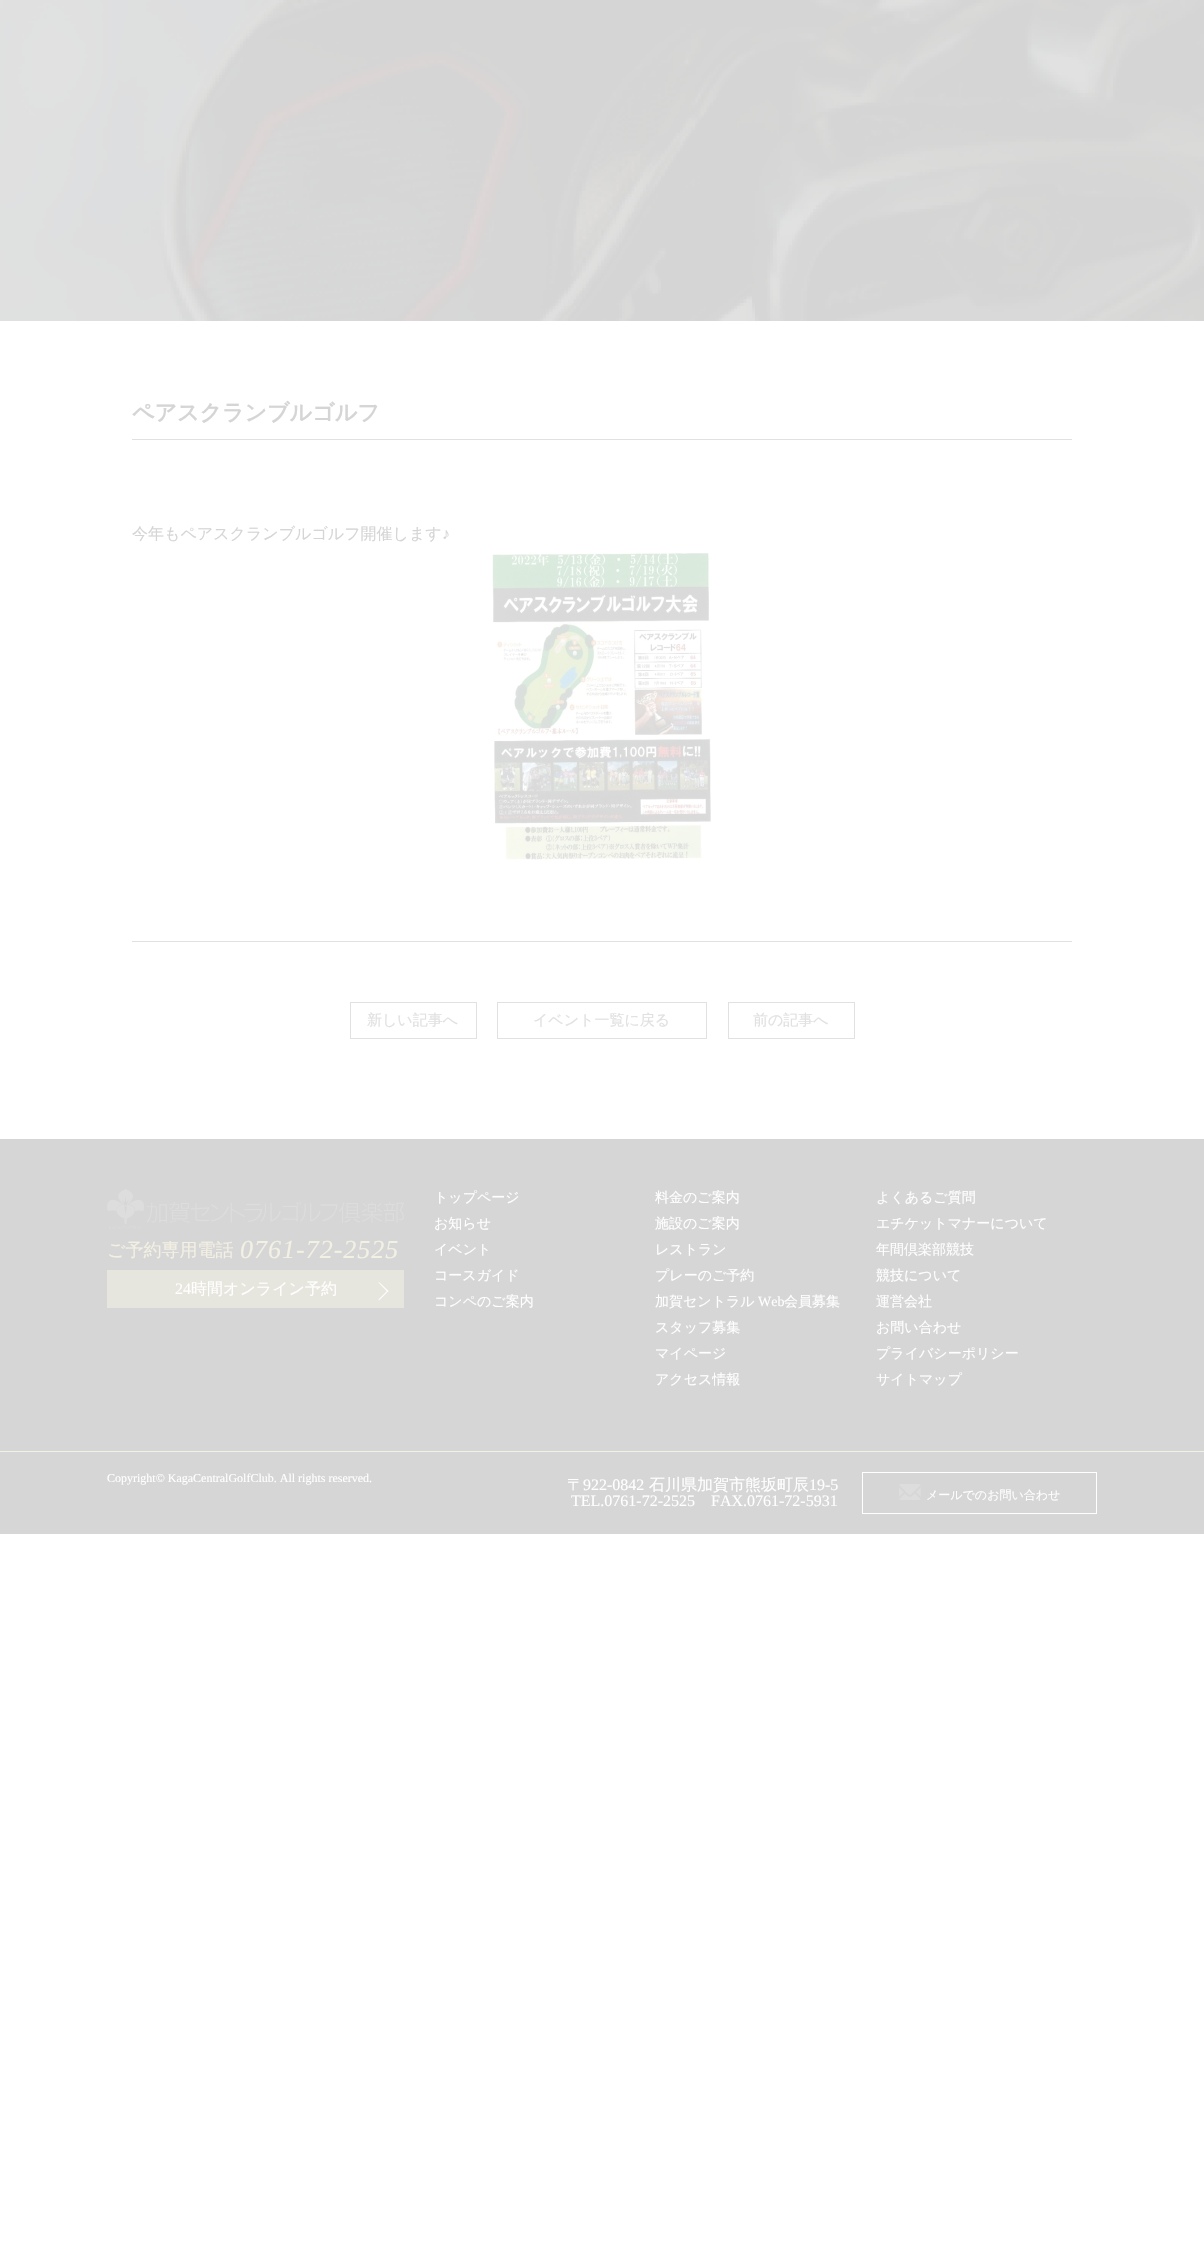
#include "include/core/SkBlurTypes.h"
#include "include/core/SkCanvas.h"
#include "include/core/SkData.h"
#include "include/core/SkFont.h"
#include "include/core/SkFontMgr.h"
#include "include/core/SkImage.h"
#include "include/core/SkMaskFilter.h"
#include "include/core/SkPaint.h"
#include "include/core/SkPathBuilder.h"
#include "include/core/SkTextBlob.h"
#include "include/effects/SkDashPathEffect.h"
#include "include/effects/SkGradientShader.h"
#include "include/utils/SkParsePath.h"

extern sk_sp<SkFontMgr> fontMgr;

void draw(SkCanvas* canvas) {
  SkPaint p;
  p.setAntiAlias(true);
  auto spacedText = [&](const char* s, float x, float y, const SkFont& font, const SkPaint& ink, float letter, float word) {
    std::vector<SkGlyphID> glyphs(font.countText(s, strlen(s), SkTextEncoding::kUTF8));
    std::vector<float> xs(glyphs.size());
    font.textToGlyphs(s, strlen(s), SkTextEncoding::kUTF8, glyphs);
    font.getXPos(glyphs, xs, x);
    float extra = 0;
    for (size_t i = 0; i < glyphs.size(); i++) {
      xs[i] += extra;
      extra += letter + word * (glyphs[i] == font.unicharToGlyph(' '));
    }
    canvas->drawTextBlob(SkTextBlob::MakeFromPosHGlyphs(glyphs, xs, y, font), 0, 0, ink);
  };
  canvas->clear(SK_ColorWHITE);
  canvas->drawImageRect(SkImages::DeferredFromEncodedData(SkData::MakeFromFileName("images/1.png")), SkRect::MakeLTRB(0, 0, 1204, 321), SkSamplingOptions());
  p.setColor(SkColorSetRGB(225, 225, 225));
  canvas->drawRect(SkRect::MakeLTRB(132, 439, 1072, 440), p);
  canvas->drawRect(SkRect::MakeLTRB(132, 941, 1072, 942), p);
  canvas->drawImageRect(SkImages::DeferredFromEncodedData(SkData::MakeFromFileName("images/2.png")), SkRect::MakeLTRB(492, 553, 711, 860), SkSamplingOptions());
  p.setStyle(SkPaint::kStroke_Style);
  p.setStrokeWidth(1);
  canvas->drawRect(SkRect::MakeLTRB(350.5f, 1002.5f, 476.5f, 1038.5f), p);
  canvas->drawRect(SkRect::MakeLTRB(497.5f, 1002.5f, 706.5f, 1038.5f), p);
  canvas->drawRect(SkRect::MakeLTRB(728.5f, 1002.5f, 854.5f, 1038.5f), p);
  p.setStyle(SkPaint::kFill_Style);
  p.setColor(SkColorSetRGB(214, 214, 214));
  canvas->drawRect(SkRect::MakeLTRB(0, 1139, 1204, 1534), p);
  canvas->drawImageRect(SkImages::DeferredFromEncodedData(SkData::MakeFromFileName("images/3.png")), SkRect::MakeLTRB(107, 1189, 404, 1229), SkSamplingOptions());
  p.setColor(SkColorSetRGB(231, 230, 222));
  canvas->drawRect(SkRect::MakeLTRB(107, 1270, 404, 1308), p);
  p.setColor(SK_ColorWHITE);
  canvas->drawPath(SkPathBuilder().moveTo(379, 1282).lineTo(388.5f, 1291).lineTo(387.5f, 1292).lineTo(378.5f, 1282.5f).close().detach(), p);
  canvas->drawPath(SkPathBuilder().moveTo(387.5f, 1290.5f).lineTo(388.5f, 1291).lineTo(379, 1300.5f).lineTo(378.5f, 1299.5f).close().detach(), p);
  p.setColor(SkColorSetRGB(243, 240, 228));
  canvas->drawRect(SkRect::MakeLTRB(0, 1451, 1204, 1452), p);
  p.setStyle(SkPaint::kStroke_Style);
  p.setColor(SK_ColorWHITE);
  canvas->drawRect(SkRect::MakeLTRB(862.5f, 1472.5f, 1096.5f, 1513.5f), p);
  canvas->drawImageRect(SkImages::DeferredFromEncodedData(SkData::MakeFromFileName("images/4.png")), SkRect::MakeLTRB(899, 1484, 921, 1500), SkSamplingOptions());
  SkFont font1(fontMgr->matchFamilyStyle("WenQuanYi Zen Hei", SkFontStyle::Bold()), 22);
  font1.setSubpixel(true);
  p.setStyle(SkPaint::kFill_Style);
  p.setColor(SkColorSetRGB(213, 213, 213));
  canvas->drawString("ペアスクランブルゴルフ", 132, 420, font1, p);
  SkFont font2(fontMgr->matchFamilyStyle("WenQuanYi Zen Hei", SkFontStyle(500, SkFontStyle::kNormal_Width, SkFontStyle::kUpright_Slant)), 16);
  font2.setSubpixel(true);
  canvas->drawString("今年もペアスクランブルゴルフ開催します", 132, 539, font2, p);
  SkFont font3(fontMgr->matchFamilyStyle("Liberation Serif", SkFontStyle::Normal()), 16);
  font3.setSubpixel(true);
  canvas->drawString("♪", 442, 539, font3, p);
  SkFont font4(fontMgr->matchFamilyStyle("WenQuanYi Zen Hei", SkFontStyle(500, SkFontStyle::kNormal_Width, SkFontStyle::kUpright_Slant)), 15);
  font4.setSubpixel(true);
  p.setColor(SkColorSetRGB(225, 225, 225));
  canvas->drawString("新しい記事へ", 367, 1025, font4, p);
  canvas->drawString("イベント一覧に戻る", 533, 1025, font4, p);
  canvas->drawString("前の記事へ", 753, 1025, font4, p);
  SkFont font5(fontMgr->matchFamilyStyle("WenQuanYi Zen Hei", SkFontStyle(500, SkFontStyle::kNormal_Width, SkFontStyle::kUpright_Slant)), 18);
  font5.setSubpixel(true);
  p.setColor(SkColorSetRGB(243, 240, 228));
  canvas->drawString("ご予約専用電話", 107, 1256, font5, p);
  SkFont font6(fontMgr->matchFamilyStyle("Liberation Serif", SkFontStyle::Italic()), 26);
  font6.setSubpixel(true);
  spacedText("0761-72-2525", 240, 1258, font6, p, 1, 0);
  p.setColor(SK_ColorWHITE);
  canvas->drawString("24", 175, 1294, font3, p);
  canvas->drawString("時間オンライン予約", 191, 1294, font2, p);
  SkFont font7(fontMgr->matchFamilyStyle("WenQuanYi Zen Hei", SkFontStyle(500, SkFontStyle::kNormal_Width, SkFontStyle::kUpright_Slant)), 14);
  font7.setSubpixel(true);
  canvas->drawString("トップページ", 434, 1202, font7, p);
  canvas->drawString("お知らせ", 434, 1228, font7, p);
  canvas->drawString("イベント", 434, 1254, font7, p);
  canvas->drawString("コースガイド", 434, 1280, font7, p);
  canvas->drawString("コンペのご案内", 434, 1306, font7, p);
  canvas->drawString("料金のご案内", 655, 1202, font7, p);
  canvas->drawString("施設のご案内", 655, 1228, font7, p);
  canvas->drawString("レストラン", 655, 1254, font7, p);
  canvas->drawString("プレーのご予約", 655, 1280, font7, p);
  canvas->drawString("よくあるご質問", 876, 1202, font7, p);
  canvas->drawString("エチケットマナーについて", 876, 1228, font7, p);
  canvas->drawString("年間倶楽部競技", 876, 1254, font7, p);
  canvas->drawString("競技について", 876, 1280, font7, p);
  canvas->drawString("加賀セントラル", 655, 1306, font7, p);
  SkFont font8(fontMgr->matchFamilyStyle("Liberation Serif", SkFontStyle::Normal()), 14);
  font8.setSubpixel(true);
  canvas->drawString("Web", 758, 1306, font8, p);
  canvas->drawString("会員募集", 784, 1306, font7, p);
  canvas->drawString("スタッフ募集", 655, 1332, font7, p);
  canvas->drawString("マイページ", 655, 1358, font7, p);
  canvas->drawString("アクセス情報", 655, 1384, font7, p);
  canvas->drawString("運営会社", 876, 1306, font7, p);
  canvas->drawString("お問い合わせ", 876, 1332, font7, p);
  canvas->drawString("プライバシーポリシー", 876, 1358, font7, p);
  canvas->drawString("サイトマップ", 876, 1384, font7, p);
  SkFont font9(fontMgr->matchFamilyStyle("Liberation Serif", SkFontStyle::Normal()), 12);
  font9.setSubpixel(true);
  canvas->drawString("Copyright© KagaCentralGolfClub. All rights reserved.", 107, 1482, font9, p);
  canvas->drawString("〒", 567, 1490, font2, p);
  canvas->drawString("922-0842", 583, 1490, font3, p);
  canvas->drawString("石川県加賀市熊坂町辰", 649, 1490, font2, p);
  canvas->drawString("19-5", 809, 1490, font3, p);
  canvas->drawString("TEL.0761-72-2525", 571, 1506, font3, p);
  canvas->drawString("FAX.0761-72-5931", 711, 1506, font3, p);
  SkFont font10(fontMgr->matchFamilyStyle("WenQuanYi Zen Hei", SkFontStyle(500, SkFontStyle::kNormal_Width, SkFontStyle::kUpright_Slant)), 12);
  font10.setSubpixel(true);
  canvas->drawString("メールでのお問い合わせ", 926, 1499, font10, p);
}
